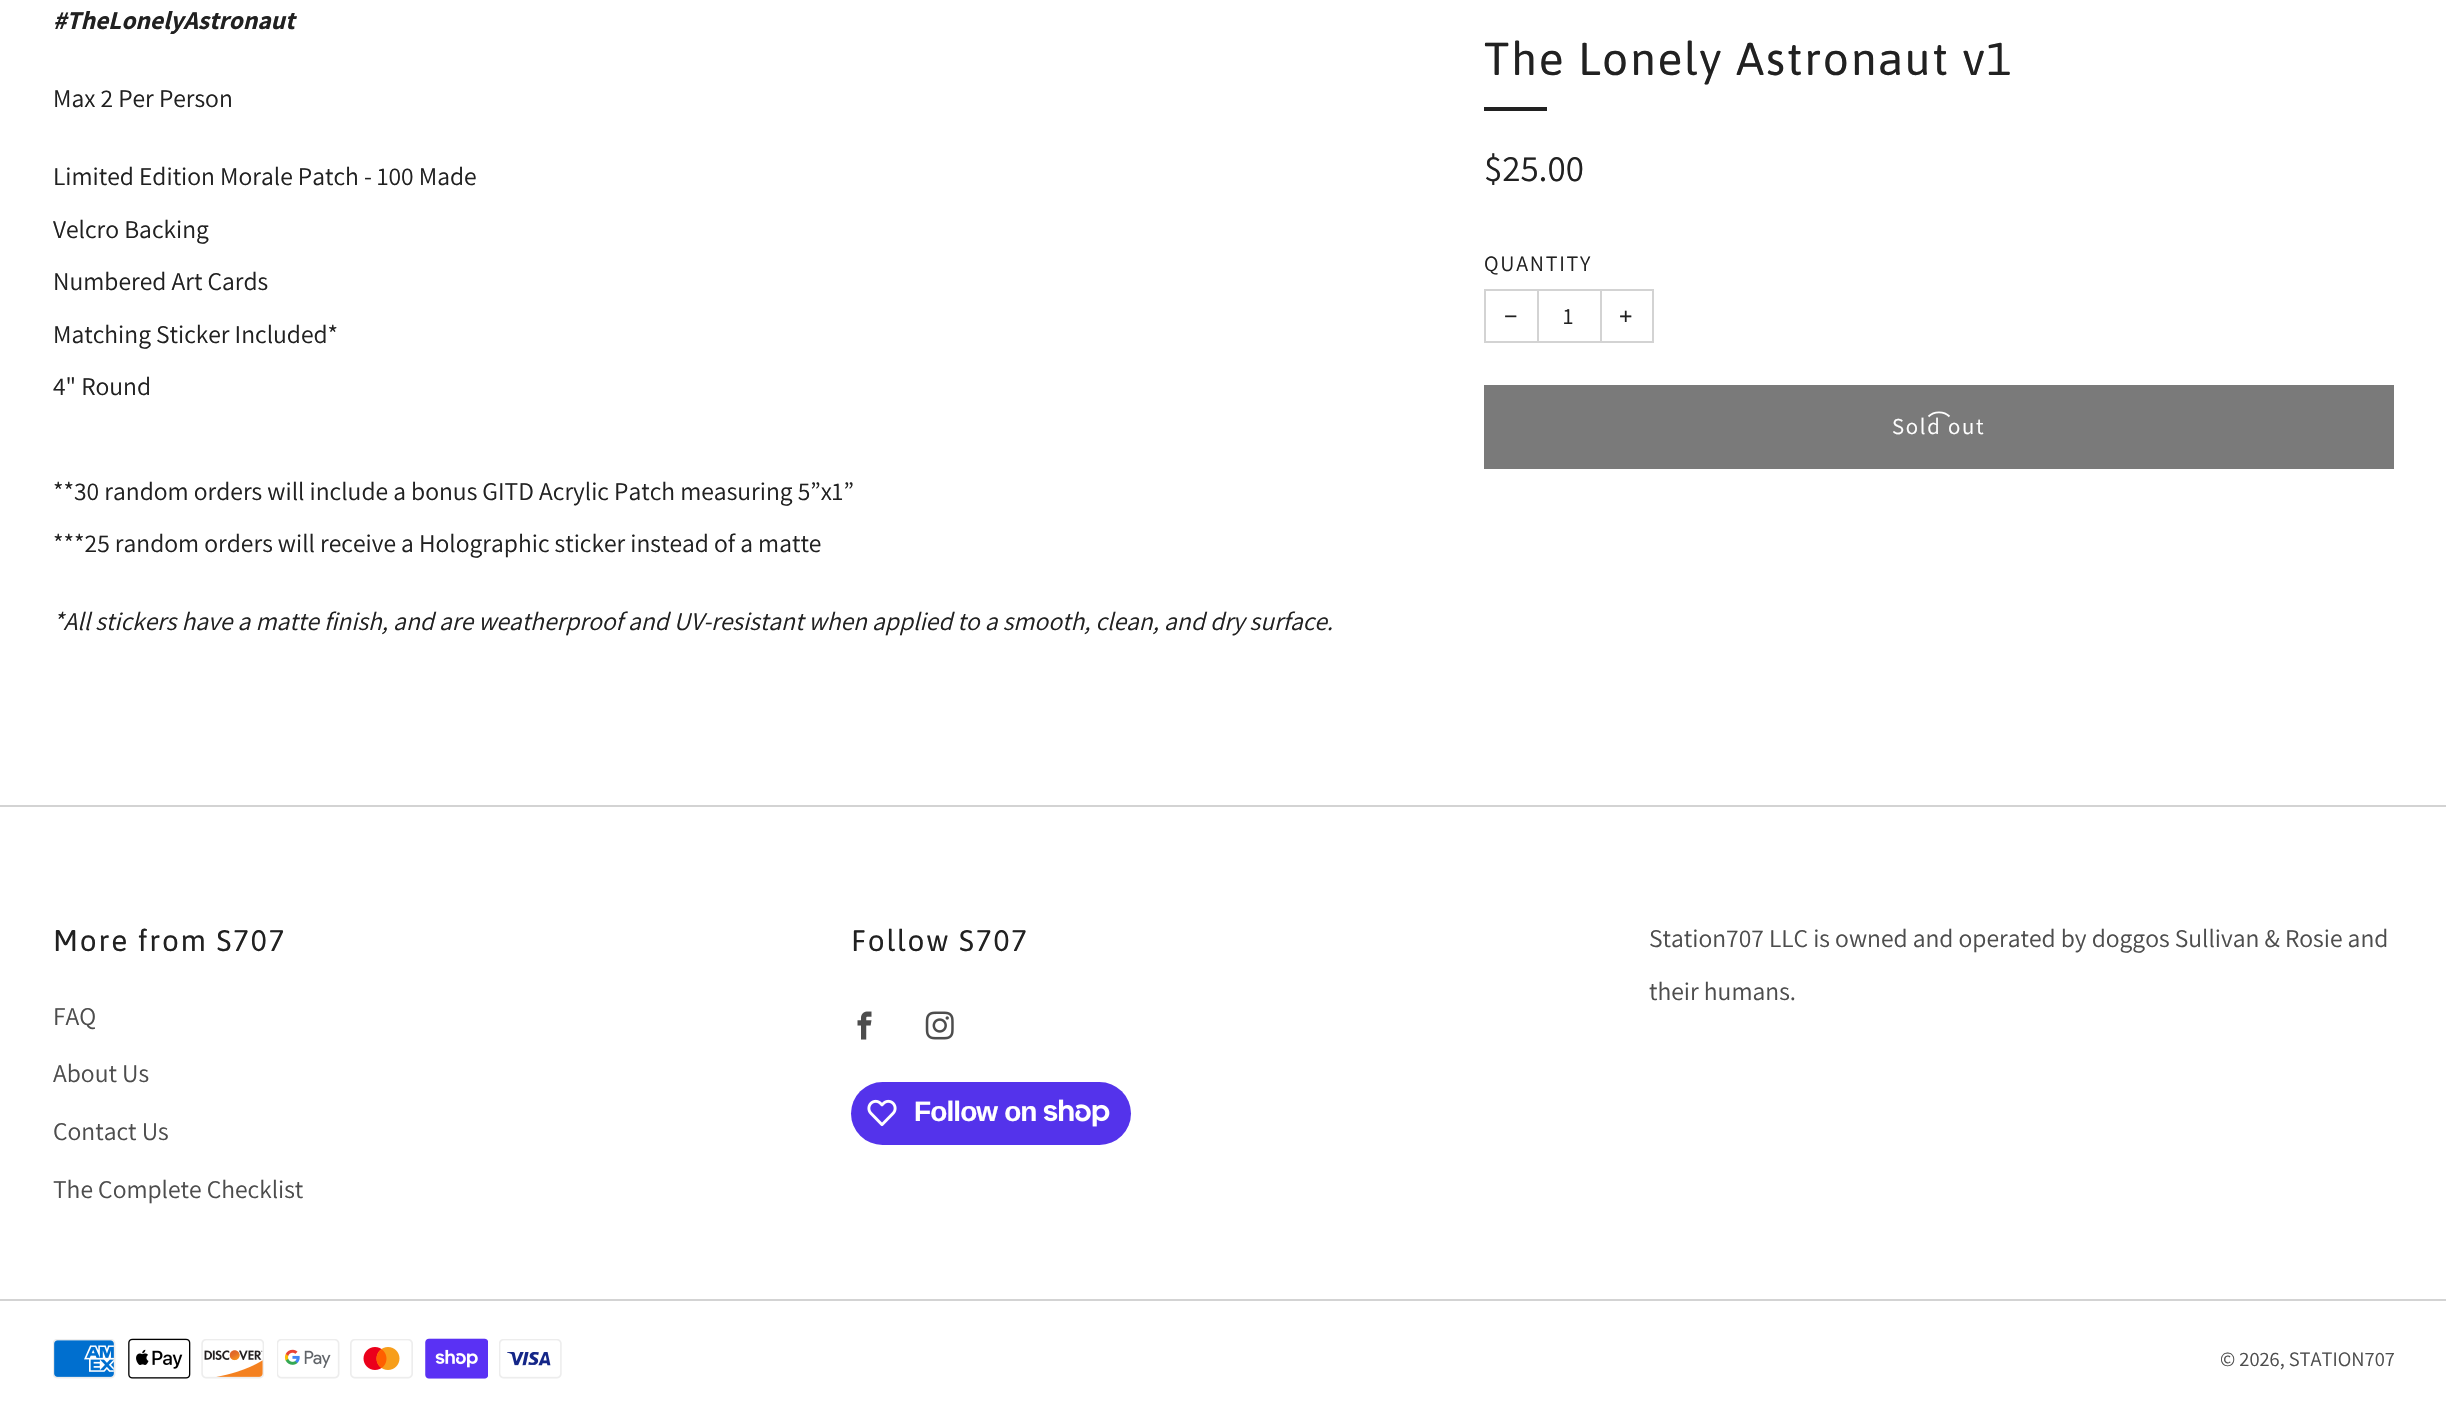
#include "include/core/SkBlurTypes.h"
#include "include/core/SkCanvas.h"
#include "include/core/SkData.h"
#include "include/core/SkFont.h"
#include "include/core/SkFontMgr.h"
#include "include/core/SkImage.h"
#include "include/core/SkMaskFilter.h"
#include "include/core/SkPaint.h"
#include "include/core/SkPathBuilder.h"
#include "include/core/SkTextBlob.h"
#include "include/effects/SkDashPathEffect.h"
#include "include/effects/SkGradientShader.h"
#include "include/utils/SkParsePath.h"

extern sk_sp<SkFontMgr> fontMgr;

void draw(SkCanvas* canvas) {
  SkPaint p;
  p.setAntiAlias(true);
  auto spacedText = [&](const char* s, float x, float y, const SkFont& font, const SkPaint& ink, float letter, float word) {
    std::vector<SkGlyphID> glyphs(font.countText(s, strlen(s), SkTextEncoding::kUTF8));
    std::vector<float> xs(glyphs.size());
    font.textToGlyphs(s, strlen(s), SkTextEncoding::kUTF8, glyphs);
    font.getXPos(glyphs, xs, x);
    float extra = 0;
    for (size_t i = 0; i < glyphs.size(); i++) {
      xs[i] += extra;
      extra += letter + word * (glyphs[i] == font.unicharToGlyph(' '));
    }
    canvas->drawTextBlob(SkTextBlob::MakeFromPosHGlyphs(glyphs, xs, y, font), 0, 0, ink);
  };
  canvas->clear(SK_ColorWHITE);
  p.setColor(SkColorSetRGB(33, 33, 33));
  canvas->drawRect(SkRect::MakeLTRB(1484, 107, 1547, 111), p);
  p.setStyle(SkPaint::kStroke_Style);
  p.setStrokeWidth(2);
  p.setColor(SkColorSetRGB(211, 211, 211));
  canvas->drawRect(SkRect::MakeLTRB(1485, 290, 1653, 342), p);
  p.setStyle(SkPaint::kFill_Style);
  canvas->drawRect(SkRect::MakeLTRB(1600, 291, 1602, 341), p);
  canvas->drawRect(SkRect::MakeLTRB(1537, 291, 1539, 341), p);
  p.setColor(SkColorSetRGB(122, 122, 122));
  canvas->drawRect(SkRect::MakeLTRB(1484, 385, 2394, 469), p);
  p.setStyle(SkPaint::kStroke_Style);
  p.setStrokeWidth(1.8f);
  p.setColor(SK_ColorWHITE);
  canvas->drawPath(SkPathBuilder().moveTo(1928.5f, 416.5f).cubicTo(1934, 411, 1944, 411, 1949.5f, 416.5f).moveTo(1928.5f, 416.5f).cubicTo(1934, 411, 1944, 411, 1949.5f, 416.5f).moveTo(1928.5f, 416.5f).cubicTo(1934, 411, 1944, 411, 1949.5f, 416.5f).moveTo(1928.5f, 416.5f).cubicTo(1934, 411, 1944, 411, 1949.5f, 416.5f).detach(), p);
  p.setStyle(SkPaint::kFill_Style);
  p.setColor(SkColorSetRGB(211, 211, 211));
  canvas->drawRect(SkRect::MakeLTRB(0, 805, 2446, 807), p);
  canvas->drawImageRect(SkImages::DeferredFromEncodedData(SkData::MakeFromFileName("images/1.png")), SkRect::MakeLTRB(857, 1011, 872, 1040), SkSamplingOptions());
  canvas->drawImageRect(SkImages::DeferredFromEncodedData(SkData::MakeFromFileName("images/2.png")), SkRect::MakeLTRB(925, 1011, 954, 1040), SkSamplingOptions());
  p.setColor(SkColorSetRGB(84, 51, 235));
  canvas->drawRoundRect(SkRect::MakeLTRB(851, 1082, 1131, 1145), 31.5f, 31.5f, p);
  canvas->drawImageRect(SkImages::DeferredFromEncodedData(SkData::MakeFromFileName("images/3.png")), SkRect::MakeLTRB(867, 1099, 897, 1127), SkSamplingOptions());
  canvas->drawImageRect(SkImages::DeferredFromEncodedData(SkData::MakeFromFileName("images/4.png")), SkRect::MakeLTRB(1043, 1099, 1110, 1127), SkSamplingOptions());
  p.setColor(SkColorSetRGB(211, 211, 211));
  canvas->drawRect(SkRect::MakeLTRB(0, 1299, 2446, 1301), p);
  canvas->drawImageRect(SkImages::DeferredFromEncodedData(SkData::MakeFromFileName("images/5.png")), SkRect::MakeLTRB(53, 1339, 116, 1379), SkSamplingOptions());
  canvas->drawImageRect(SkImages::DeferredFromEncodedData(SkData::MakeFromFileName("images/6.png")), SkRect::MakeLTRB(128, 1338, 191, 1379), SkSamplingOptions());
  canvas->drawImageRect(SkImages::DeferredFromEncodedData(SkData::MakeFromFileName("images/7.png")), SkRect::MakeLTRB(201, 1339, 264, 1379), SkSamplingOptions());
  canvas->drawImageRect(SkImages::DeferredFromEncodedData(SkData::MakeFromFileName("images/8.png")), SkRect::MakeLTRB(277, 1339, 340, 1379), SkSamplingOptions());
  canvas->drawImageRect(SkImages::DeferredFromEncodedData(SkData::MakeFromFileName("images/9.png")), SkRect::MakeLTRB(350, 1339, 413, 1379), SkSamplingOptions());
  canvas->drawImageRect(SkImages::DeferredFromEncodedData(SkData::MakeFromFileName("images/10.png")), SkRect::MakeLTRB(425, 1338, 488, 1379), SkSamplingOptions());
  canvas->drawImageRect(SkImages::DeferredFromEncodedData(SkData::MakeFromFileName("images/11.png")), SkRect::MakeLTRB(499, 1339, 562, 1379), SkSamplingOptions());
  SkFont font1(fontMgr->matchFamilyStyle("Assistant", SkFontStyle::BoldItalic()), 25.55f);
  font1.setSubpixel(true);
  p.setColor(SkColorSetRGB(33, 33, 33));
  canvas->drawString("#TheLonelyAstronaut", 53, 29, font1, p);
  SkFont font2(fontMgr->matchFamilyStyle("Assistant", SkFontStyle::Normal()), 25.55f);
  font2.setSubpixel(true);
  canvas->drawString("Max 2 Per Person", 53, 107, font2, p);
  canvas->drawString("Limited Edition Morale Patch - 100 Made", 53, 185, font2, p);
  canvas->drawString("Velcro Backing", 53, 238, font2, p);
  canvas->drawString("Numbered Art Cards", 53, 290, font2, p);
  canvas->drawString("Matching Sticker Included*", 53, 343, font2, p);
  canvas->drawString("4\" Round", 53, 395, font2, p);
  canvas->drawString("**30 random orders will include a bonus GITD Acrylic Patch measuring 5”x1”", 53, 500, font2, p);
  canvas->drawString("***25 random orders will receive a Holographic sticker instead of a matte", 53, 552, font2, p);
  SkFont font3(fontMgr->matchFamilyStyle("Assistant", SkFontStyle::Italic()), 25.55f);
  font3.setSubpixel(true);
  canvas->drawString("*All stickers have a matte finish, and are weatherproof and UV-resistant when applied to a smooth, clean, and dry surface.", 53, 630, font3, p);
  SkFont font4(fontMgr->matchFamilyStyle("Asap", SkFontStyle::Normal()), 46);
  font4.setSubpixel(true);
  spacedText("The Lonely Astronaut v1", 1484, 75, font4, p, 1.75f, 0);
  SkFont font5(fontMgr->matchFamilyStyle("Assistant", SkFontStyle::Normal()), 37);
  font5.setSubpixel(true);
  canvas->drawString("$25.00", 1484, 181, font5, p);
  SkFont font6(fontMgr->matchFamilyStyle("Assistant", SkFontStyle::Normal()), 22);
  font6.setSubpixel(true);
  spacedText("QUANTITY", 1484, 271, font6, p, 1.75f, 0);
  SkFont font7(fontMgr->matchFamilyStyle("Liberation Sans", SkFontStyle::Normal()), 23);
  font7.setSubpixel(true);
  canvas->drawString("−", 1504, 324, font7, p);
  SkFont font8(fontMgr->matchFamilyStyle("Assistant", SkFontStyle::Normal()), 23);
  font8.setSubpixel(true);
  canvas->drawString("1", 1563, 324, font8, p);
  canvas->drawString("+", 1619, 324, font7, p);
  SkFont font9(fontMgr->matchFamilyStyle("Assistant", SkFontStyle::Normal()), 22.75f);
  font9.setSubpixel(true);
  p.setColor(SK_ColorWHITE);
  spacedText("Sold out", 1892, 434, font9, p, 1.75f, 0);
  SkFont font10(fontMgr->matchFamilyStyle("Asap", SkFontStyle::Normal()), 29.75f);
  font10.setSubpixel(true);
  p.setColor(SkColorSetRGB(33, 33, 33));
  spacedText("More from S707", 53, 951, font10, p, 1.75f, 0);
  p.setColor(SkColorSetRGB(77, 77, 77));
  canvas->drawString("FAQ", 53, 1025, font2, p);
  canvas->drawString("About Us", 53, 1082, font2, p);
  canvas->drawString("Contact Us", 53, 1140, font2, p);
  canvas->drawString("The Complete Checklist", 53, 1198, font2, p);
  p.setColor(SkColorSetRGB(33, 33, 33));
  spacedText("Follow S707", 851, 951, font10, p, 1.75f, 0);
  SkFont font11(fontMgr->matchFamilyStyle("Liberation Sans", SkFontStyle::Bold()), 28);
  font11.setSubpixel(true);
  p.setColor(SK_ColorWHITE);
  spacedText("Follow on", 914, 1121, font11, p, -0.9f, 0);
  p.setColor(SkColorSetRGB(77, 77, 77));
  canvas->drawString("Station707 LLC is owned and operated by doggos Sullivan & Rosie and", 1649, 947, font2, p);
  canvas->drawString("their humans.", 1649, 1000, font2, p);
  SkFont font12(fontMgr->matchFamilyStyle("Assistant", SkFontStyle::Normal()), 20.5f);
  font12.setSubpixel(true);
  canvas->drawString("© 2026, STATION707", 2220, 1366, font12, p);
}
